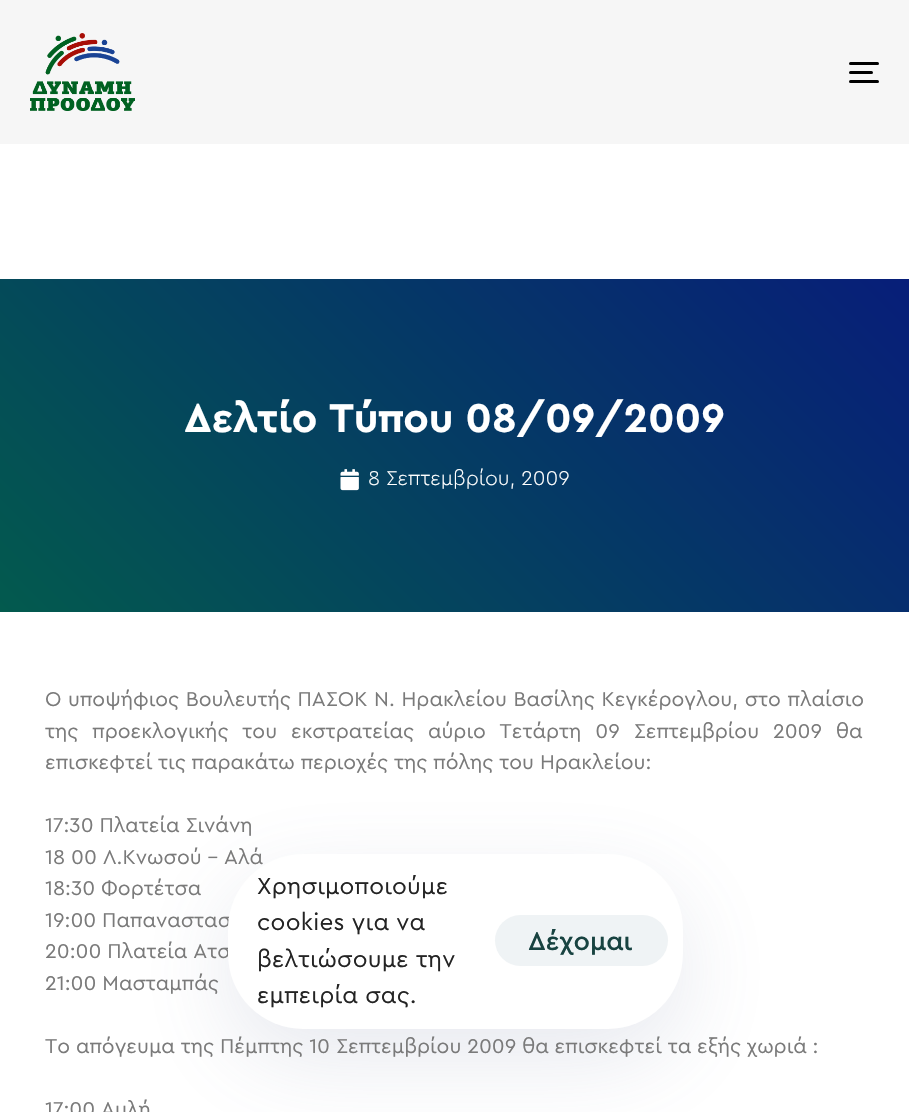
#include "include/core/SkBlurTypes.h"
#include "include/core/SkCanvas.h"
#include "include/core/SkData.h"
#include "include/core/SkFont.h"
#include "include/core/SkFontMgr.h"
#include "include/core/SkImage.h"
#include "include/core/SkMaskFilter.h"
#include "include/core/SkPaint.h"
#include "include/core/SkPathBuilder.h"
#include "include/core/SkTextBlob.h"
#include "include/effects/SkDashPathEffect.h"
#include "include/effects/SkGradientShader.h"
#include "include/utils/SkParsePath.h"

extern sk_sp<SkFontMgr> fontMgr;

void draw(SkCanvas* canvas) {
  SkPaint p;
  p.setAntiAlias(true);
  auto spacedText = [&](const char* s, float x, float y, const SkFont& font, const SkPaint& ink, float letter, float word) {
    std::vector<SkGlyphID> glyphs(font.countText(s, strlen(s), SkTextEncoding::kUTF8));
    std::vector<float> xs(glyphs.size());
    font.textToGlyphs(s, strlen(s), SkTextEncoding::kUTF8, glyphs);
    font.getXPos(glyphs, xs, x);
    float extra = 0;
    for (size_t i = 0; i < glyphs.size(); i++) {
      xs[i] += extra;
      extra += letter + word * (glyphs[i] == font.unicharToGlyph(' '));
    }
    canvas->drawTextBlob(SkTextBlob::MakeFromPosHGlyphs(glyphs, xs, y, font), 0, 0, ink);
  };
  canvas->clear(SK_ColorWHITE);
  p.setColor(SkColorSetRGB(246, 246, 246));
  canvas->drawRect(SkRect::MakeLTRB(0, 0, 909, 144), p);
  canvas->drawImageRect(SkImages::DeferredFromEncodedData(SkData::MakeFromFileName("images/1.png")), SkRect::MakeLTRB(30, 33, 135, 111), SkSamplingOptions());
  p.setColor(SK_ColorBLACK);
  canvas->drawRoundRect(SkRect::MakeLTRB(849, 62, 879, 65), 1.5f, 1.5f, p);
  canvas->drawRoundRect(SkRect::MakeLTRB(849, 71, 873, 74), 1.5f, 1.5f, p);
  canvas->drawRoundRect(SkRect::MakeLTRB(849, 80, 879, 83), 1.5f, 1.5f, p);
  {
    const SkColor colors[] = {SkColorSetRGB(3, 90, 78), SkColorSetRGB(7, 30, 121)};
    const float stops[] = {0, 1};
    const SkPoint ends[] = {{144, 756}, {765, 135}};
    p.setShader(SkGradientShader::MakeLinear(ends, colors, stops, 2, SkTileMode::kClamp));
    p.setAlpha(255);
  }
  canvas->drawRect(SkRect::MakeLTRB(0, 279, 909, 612), p);
  canvas->drawImageRect(SkImages::DeferredFromEncodedData(SkData::MakeFromFileName("images/2.png")), SkRect::MakeLTRB(340, 469, 359, 491), SkSamplingOptions());
  p.setShader(nullptr);
  p.setColor(SkColorSetARGB(38, 92, 107, 149));
  p.setMaskFilter(SkMaskFilter::MakeBlur(kNormal_SkBlurStyle, 45));
  canvas->drawRoundRect(SkRect::MakeLTRB(228, 884, 683, 1059), 75, 75, p);
  p.setMaskFilter(nullptr);
  SkFont font1(fontMgr->matchFamilyStyle("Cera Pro", SkFontStyle::Bold()), 42);
  font1.setSubpixel(true);
  p.setColor(SK_ColorWHITE);
  canvas->drawString("Δελτίο Τύπου 08/09/2009", 184, 432, font1, p);
  SkFont font2(fontMgr->matchFamilyStyle("Cera Pro", SkFontStyle(300, SkFontStyle::kNormal_Width, SkFontStyle::kUpright_Slant)), 21);
  font2.setSubpixel(true);
  canvas->drawString("8 Σεπτεμβρίου, 2009", 368, 485, font2, p);
  SkFont font3(fontMgr->matchFamilyStyle("Cera Pro", SkFontStyle::Normal()), 21);
  font3.setSubpixel(true);
  p.setColor(SkColorSetRGB(122, 122, 122));
  spacedText("Ο υποψήφιος Βουλευτής ΠΑΣΟΚ Ν. Ηρακλείου Βασίλης Κεγκέρογλου, στο πλαίσιο", 45, 706, font3, p, 0, 0.75f);
  spacedText("της προεκλογικής του εκστρατείας αύριο Τετάρτη 09 Σεπτεμβρίου 2009 θα", 45, 738, font3, p, 0, 8);
  canvas->drawString("επισκεφτεί τις παρακάτω περιοχές της πόλης του Ηρακλείου:", 45, 769, font3, p);
  canvas->drawString("17:30 Πλατεία Σινάνη", 45, 832, font3, p);
  canvas->drawString("18 00 Λ.Κνωσού – Αλά", 45, 864, font3, p);
  canvas->drawString("18:30 Φορτέτσα", 45, 895, font3, p);
  canvas->drawString("19:00 Παπαναστασ", 45, 927, font3, p);
  canvas->drawString("20:00 Πλατεία Ατσ", 45, 958, font3, p);
  canvas->drawString("21:00 Μασταμπάς", 45, 990, font3, p);
  canvas->drawString("Το απόγευμα της Πέμπτης 10 Σεπτεμβρίου 2009 θα επισκεφτεί τα εξής χωριά :", 45, 1053, font3, p);
  canvas->drawString("17:00 Αυλή", 45, 1116, font3, p);
  p.setColor(SK_ColorWHITE);
  canvas->drawRoundRect(SkRect::MakeLTRB(228, 854, 683, 1029), 75, 75, p);
  SkFont font4(fontMgr->matchFamilyStyle("Cera Pro", SkFontStyle::Normal()), 24.25f);
  font4.setSubpixel(true);
  p.setColor(SkColorSetRGB(36, 36, 36));
  spacedText("Χρησιμοποιούμε", 257, 894, font4, p, 0.25f, 0);
  spacedText("cookies για να", 257, 930, font4, p, 0.25f, 0);
  spacedText("βελτιώσουμε την", 257, 967, font4, p, 0.25f, 0);
  spacedText("εμπειρία σας.", 257, 1003, font4, p, 0.25f, 0);
  p.setColor(SkColorSetRGB(239, 243, 245));
  canvas->drawRoundRect(SkRect::MakeLTRB(495, 915, 668, 966), 25.5f, 25.5f, p);
  SkFont font5(fontMgr->matchFamilyStyle("Cera Pro", SkFontStyle(500, SkFontStyle::kNormal_Width, SkFontStyle::kUpright_Slant)), 27);
  font5.setSubpixel(true);
  p.setColor(SkColorSetRGB(24, 67, 65));
  canvas->drawString("Δέχομαι", 528, 950, font5, p);
}
